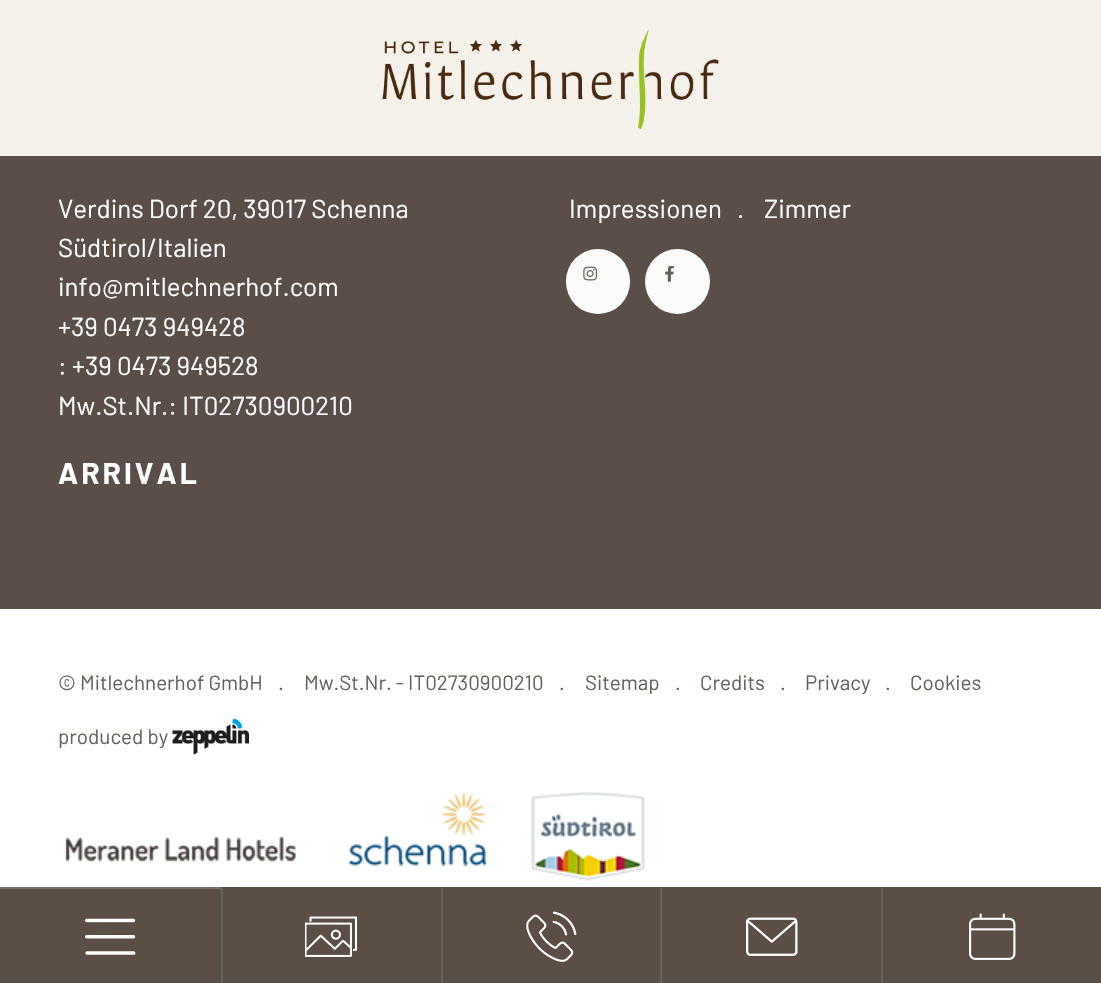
#include "include/core/SkBlurTypes.h"
#include "include/core/SkCanvas.h"
#include "include/core/SkData.h"
#include "include/core/SkFont.h"
#include "include/core/SkFontMgr.h"
#include "include/core/SkImage.h"
#include "include/core/SkMaskFilter.h"
#include "include/core/SkPaint.h"
#include "include/core/SkPathBuilder.h"
#include "include/core/SkTextBlob.h"
#include "include/effects/SkDashPathEffect.h"
#include "include/effects/SkGradientShader.h"
#include "include/utils/SkParsePath.h"

extern sk_sp<SkFontMgr> fontMgr;

void draw(SkCanvas* canvas) {
  SkPaint p;
  p.setAntiAlias(true);
  auto spacedText = [&](const char* s, float x, float y, const SkFont& font, const SkPaint& ink, float letter, float word) {
    std::vector<SkGlyphID> glyphs(font.countText(s, strlen(s), SkTextEncoding::kUTF8));
    std::vector<float> xs(glyphs.size());
    font.textToGlyphs(s, strlen(s), SkTextEncoding::kUTF8, glyphs);
    font.getXPos(glyphs, xs, x);
    float extra = 0;
    for (size_t i = 0; i < glyphs.size(); i++) {
      xs[i] += extra;
      extra += letter + word * (glyphs[i] == font.unicharToGlyph(' '));
    }
    canvas->drawTextBlob(SkTextBlob::MakeFromPosHGlyphs(glyphs, xs, y, font), 0, 0, ink);
  };
  canvas->clear(SK_ColorWHITE);
  p.setColor(SkColorSetRGB(245, 242, 236));
  canvas->drawRect(SkRect::MakeLTRB(0, 0, 1101, 156), p);
  canvas->drawImageRect(SkImages::DeferredFromEncodedData(SkData::MakeFromFileName("images/1.png")), SkRect::MakeLTRB(382, 28, 719, 129), SkSamplingOptions());
  p.setColor(SkColorSetRGB(90, 78, 71));
  canvas->drawRect(SkRect::MakeLTRB(0, 889, 221, 983), p);
  p.setColor(SkColorSetRGB(123, 113, 108));
  canvas->drawRect(SkRect::MakeLTRB(0, 887, 221, 889), p);
  canvas->drawImageRect(SkImages::DeferredFromEncodedData(SkData::MakeFromFileName("images/2.png")), SkRect::MakeLTRB(85, 918, 136, 955), SkSamplingOptions());
  p.setColor(SkColorSetRGB(90, 78, 71));
  canvas->drawRect(SkRect::MakeLTRB(221, 887, 1101, 983), p);
  p.setColor(SkColorSetRGB(102, 97, 90));
  canvas->drawRect(SkRect::MakeLTRB(221, 888, 223, 983), p);
  canvas->drawImageRect(SkImages::DeferredFromEncodedData(SkData::MakeFromFileName("images/3.png")), SkRect::MakeLTRB(305, 916, 357, 957), SkSamplingOptions());
  canvas->drawRect(SkRect::MakeLTRB(441, 888, 443, 983), p);
  canvas->drawImageRect(SkImages::DeferredFromEncodedData(SkData::MakeFromFileName("images/4.png")), SkRect::MakeLTRB(526, 911, 577, 962), SkSamplingOptions());
  canvas->drawRect(SkRect::MakeLTRB(660, 888, 662, 983), p);
  canvas->drawImageRect(SkImages::DeferredFromEncodedData(SkData::MakeFromFileName("images/5.png")), SkRect::MakeLTRB(746, 917, 798, 956), SkSamplingOptions());
  canvas->drawRect(SkRect::MakeLTRB(881, 888, 883, 983), p);
  canvas->drawImageRect(SkImages::DeferredFromEncodedData(SkData::MakeFromFileName("images/6.png")), SkRect::MakeLTRB(969, 913, 1016, 960), SkSamplingOptions());
  p.setColor(SkColorSetRGB(90, 78, 72));
  canvas->drawRect(SkRect::MakeLTRB(0, 156, 1101, 609), p);
  p.setColor(SkColorSetRGB(251, 251, 251));
  canvas->drawRoundRect(SkRect::MakeLTRB(566, 249, 630, 314), 32, 32, p);
  canvas->drawImageRect(SkImages::DeferredFromEncodedData(SkData::MakeFromFileName("images/7.png")), SkRect::MakeLTRB(583, 266, 598, 281), SkSamplingOptions());
  canvas->drawCircle(677.5f, 281.5f, 32.5f, p);
  canvas->drawImageRect(SkImages::DeferredFromEncodedData(SkData::MakeFromFileName("images/8.png")), SkRect::MakeLTRB(665, 266, 674, 282), SkSamplingOptions());
  canvas->drawImageRect(SkImages::DeferredFromEncodedData(SkData::MakeFromFileName("images/9.png")), SkRect::MakeLTRB(172, 718, 249, 755), SkSamplingOptions());
  canvas->drawImageRect(SkImages::DeferredFromEncodedData(SkData::MakeFromFileName("images/10.png")), SkRect::MakeLTRB(65, 836, 296, 862), SkSamplingOptions());
  canvas->drawImageRect(SkImages::DeferredFromEncodedData(SkData::MakeFromFileName("images/11.png")), SkRect::MakeLTRB(349, 792, 486, 867), SkSamplingOptions());
  canvas->drawImageRect(SkImages::DeferredFromEncodedData(SkData::MakeFromFileName("images/12.png")), SkRect::MakeLTRB(531, 792, 645, 882), SkSamplingOptions());
  SkFont font1(fontMgr->matchFamilyStyle("Barlow", SkFontStyle::Normal()), 25.9f);
  font1.setSubpixel(true);
  p.setColor(SK_ColorWHITE);
  canvas->drawString("Verdins Dorf 20, 39017 Schenna", 58, 218, font1, p);
  canvas->drawString("Südtirol/Italien", 58, 257, font1, p);
  canvas->drawString("info@mitlechnerhof.com", 58, 296, font1, p);
  canvas->drawString("+39 0473 949428", 58, 336, font1, p);
  canvas->drawString(": +39 0473 949528", 58, 375, font1, p);
  canvas->drawString("Mw.St.Nr.: IT02730900210", 58, 415, font1, p);
  SkFont font2(fontMgr->matchFamilyStyle("Barlow", SkFontStyle::Bold()), 30);
  font2.setSubpixel(true);
  spacedText("ARRIVAL", 58, 484, font2, p, 3, 0);
  canvas->drawString("Impressionen", 569, 218, font1, p);
  canvas->drawString(".", 737, 218, font1, p);
  canvas->drawString("Zimmer", 764, 218, font1, p);
  SkFont font3(fontMgr->matchFamilyStyle("Barlow", SkFontStyle::Normal()), 20.6f);
  font3.setSubpixel(true);
  p.setColor(SkColorSetRGB(102, 97, 90));
  canvas->drawString("© Mitlechnerhof GmbH", 58, 690, font3, p);
  canvas->drawString(".", 278, 690, font3, p);
  canvas->drawString("Mw.St.Nr. - IT02730900210", 304, 690, font3, p);
  canvas->drawString(".", 559, 690, font3, p);
  canvas->drawString("Sitemap", 585, 690, font3, p);
  canvas->drawString(".", 675, 690, font3, p);
  canvas->drawString("Credits", 700, 690, font3, p);
  canvas->drawString(".", 780, 690, font3, p);
  canvas->drawString("Privacy", 805, 690, font3, p);
  canvas->drawString(".", 885, 690, font3, p);
  canvas->drawString("Cookies", 910, 690, font3, p);
  canvas->drawString("produced by", 58, 744, font3, p);
}
